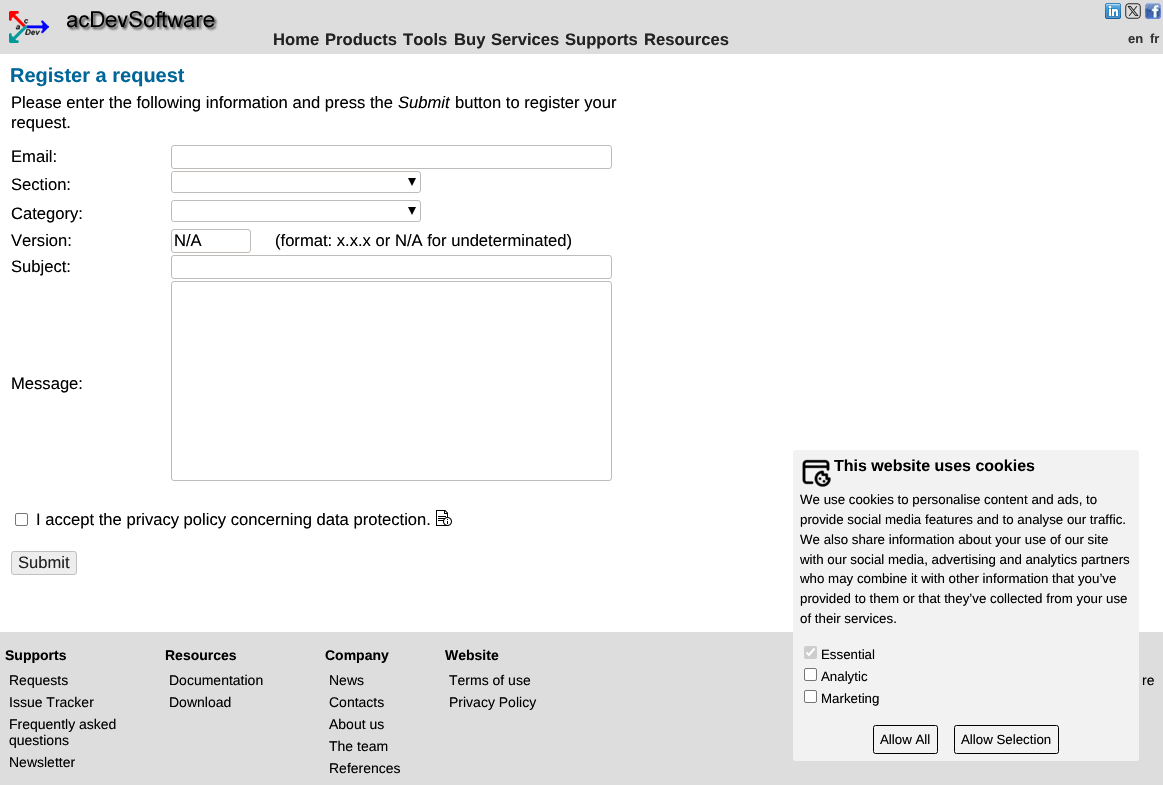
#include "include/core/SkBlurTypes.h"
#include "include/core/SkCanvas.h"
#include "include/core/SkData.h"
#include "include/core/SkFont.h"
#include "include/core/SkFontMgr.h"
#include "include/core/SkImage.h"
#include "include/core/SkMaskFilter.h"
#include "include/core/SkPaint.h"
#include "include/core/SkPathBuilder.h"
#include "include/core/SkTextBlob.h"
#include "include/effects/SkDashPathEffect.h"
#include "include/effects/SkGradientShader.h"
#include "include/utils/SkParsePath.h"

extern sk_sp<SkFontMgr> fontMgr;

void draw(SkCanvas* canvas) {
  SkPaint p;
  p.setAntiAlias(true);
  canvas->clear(SK_ColorWHITE);
  p.setColor(SkColorSetRGB(221, 221, 221));
  canvas->drawRect(SkRect::MakeLTRB(0, 0, 1163, 54), p);
  canvas->drawImageRect(SkImages::DeferredFromEncodedData(SkData::MakeFromFileName("images/1.png")), SkRect::MakeLTRB(9, 11, 219, 43), SkSamplingOptions());
  canvas->drawImageRect(SkImages::DeferredFromEncodedData(SkData::MakeFromFileName("images/2.png")), SkRect::MakeLTRB(1105, 3, 1121, 19), SkSamplingOptions());
  canvas->drawImageRect(SkImages::DeferredFromEncodedData(SkData::MakeFromFileName("images/3.png")), SkRect::MakeLTRB(1125, 3, 1141, 19), SkSamplingOptions());
  canvas->drawImageRect(SkImages::DeferredFromEncodedData(SkData::MakeFromFileName("images/4.png")), SkRect::MakeLTRB(1145, 3, 1161, 19), SkSamplingOptions());
  p.setStyle(SkPaint::kStroke_Style);
  p.setStrokeWidth(1);
  p.setColor(SkColorSetRGB(190, 187, 184));
  canvas->drawRoundRect(SkRect::MakeLTRB(171.5f, 145.5f, 611.5f, 168.5f), 2.5f, 2.5f, p);
  canvas->drawRoundRect(SkRect::MakeLTRB(171.5f, 171.5f, 420.5f, 192.5f), 2.5f, 2.5f, p);
  p.setStyle(SkPaint::kFill_Style);
  p.setColor(SK_ColorWHITE);
  canvas->drawRect(SkRect::MakeLTRB(173, 172, 174, 192), p);
  p.setColor(SK_ColorBLACK);
  canvas->drawPath(SkPathBuilder().moveTo(408, 178).lineTo(416, 178).lineTo(412, 186).close().detach(), p);
  p.setStyle(SkPaint::kStroke_Style);
  p.setColor(SkColorSetRGB(190, 187, 184));
  canvas->drawRoundRect(SkRect::MakeLTRB(171.5f, 200.5f, 420.5f, 221.5f), 2.5f, 2.5f, p);
  p.setStyle(SkPaint::kFill_Style);
  p.setColor(SK_ColorWHITE);
  canvas->drawRect(SkRect::MakeLTRB(173, 201, 174, 221), p);
  p.setColor(SK_ColorBLACK);
  canvas->drawPath(SkPathBuilder().moveTo(408, 207).lineTo(416, 207).lineTo(412, 215).close().detach(), p);
  p.setStyle(SkPaint::kStroke_Style);
  p.setColor(SkColorSetRGB(190, 187, 184));
  canvas->drawRoundRect(SkRect::MakeLTRB(171.5f, 229.5f, 250.5f, 252.5f), 2.5f, 2.5f, p);
  canvas->drawRoundRect(SkRect::MakeLTRB(171.5f, 255.5f, 611.5f, 278.5f), 2.5f, 2.5f, p);
  canvas->drawRoundRect(SkRect::MakeLTRB(171.5f, 281.5f, 611.5f, 480.5f), 2.5f, 2.5f, p);
  p.setColor(SkColorSetRGB(118, 118, 118));
  canvas->drawRoundRect(SkRect::MakeLTRB(15.5f, 513.5f, 27.5f, 525.5f), 1.5f, 1.5f, p);
  canvas->drawImageRect(SkImages::DeferredFromEncodedData(SkData::MakeFromFileName("images/5.png")), SkRect::MakeLTRB(436, 510, 452, 526), SkSamplingOptions());
  p.setStyle(SkPaint::kFill_Style);
  p.setColor(SkColorSetRGB(237, 237, 237));
  canvas->drawRoundRect(SkRect::MakeLTRB(11.5f, 551.5f, 76.5f, 574.5f), 2.5f, 2.5f, p);
  p.setStyle(SkPaint::kStroke_Style);
  p.setColor(SkColorSetRGB(192, 192, 192));
  canvas->drawRoundRect(SkRect::MakeLTRB(11.5f, 551.5f, 76.5f, 574.5f), 2.5f, 2.5f, p);
  p.setStyle(SkPaint::kFill_Style);
  p.setColor(SkColorSetRGB(221, 221, 221));
  canvas->drawRect(SkRect::MakeLTRB(0, 632, 1163, 785), p);
  p.setColor(SkColorSetRGB(242, 242, 242));
  canvas->drawRoundRect(SkRect::MakeLTRB(793, 450, 1139, 761), 2.5f, 2.5f, p);
  p.setColor(SkColorSetRGB(205, 205, 205));
  canvas->drawRoundRect(SkRect::MakeLTRB(804, 646, 817, 659), 2, 2, p);
  p.setStyle(SkPaint::kStroke_Style);
  p.setStrokeWidth(2.1f);
  p.setColor(SK_ColorWHITE);
  canvas->drawPath(SkPathBuilder().moveTo(806.5f, 652.5f).lineTo(809, 655).lineTo(814.5f, 648.5f).detach(), p);
  p.setStyle(SkPaint::kFill_Style);
  canvas->drawRoundRect(SkRect::MakeLTRB(804.5f, 668.5f, 816.5f, 680.5f), 1.5f, 1.5f, p);
  p.setStyle(SkPaint::kStroke_Style);
  p.setStrokeWidth(1);
  p.setColor(SkColorSetRGB(118, 118, 118));
  canvas->drawRoundRect(SkRect::MakeLTRB(804.5f, 668.5f, 816.5f, 680.5f), 1.5f, 1.5f, p);
  p.setStyle(SkPaint::kFill_Style);
  p.setColor(SK_ColorWHITE);
  canvas->drawRoundRect(SkRect::MakeLTRB(804.5f, 690.5f, 816.5f, 702.5f), 1.5f, 1.5f, p);
  p.setStyle(SkPaint::kStroke_Style);
  p.setColor(SkColorSetRGB(118, 118, 118));
  canvas->drawRoundRect(SkRect::MakeLTRB(804.5f, 690.5f, 816.5f, 702.5f), 1.5f, 1.5f, p);
  p.setColor(SK_ColorBLACK);
  canvas->drawRoundRect(SkRect::MakeLTRB(873.5f, 725.5f, 937.5f, 753.5f), 2, 2, p);
  canvas->drawRoundRect(SkRect::MakeLTRB(954.5f, 725.5f, 1058.5f, 753.5f), 2, 2, p);
  canvas->drawImageRect(SkImages::DeferredFromEncodedData(SkData::MakeFromFileName("images/6.png")), SkRect::MakeLTRB(802, 459, 831, 487), SkSamplingOptions());
  SkFont font1(fontMgr->matchFamilyStyle("Liberation Sans", SkFontStyle::Bold()), 16.6f);
  font1.setSubpixel(true);
  p.setStyle(SkPaint::kFill_Style);
  p.setColor(SkColorSetRGB(34, 34, 34));
  canvas->drawString("Home", 273, 45, font1, p);
  canvas->drawString("Products", 325, 45, font1, p);
  canvas->drawString("Tools", 403, 45, font1, p);
  canvas->drawString("Buy", 454, 45, font1, p);
  canvas->drawString("Services", 491, 45, font1, p);
  canvas->drawString("Supports", 565, 45, font1, p);
  canvas->drawString("Resources", 644, 45, font1, p);
  SkFont font2(fontMgr->matchFamilyStyle("Liberation Sans", SkFontStyle::Bold()), 13);
  font2.setSubpixel(true);
  p.setColor(SkColorSetRGB(51, 51, 51));
  canvas->drawString("en", 1128, 43, font2, p);
  canvas->drawString("fr", 1150, 43, font2, p);
  SkFont font3(fontMgr->matchFamilyStyle("Liberation Sans", SkFontStyle::Bold()), 20);
  font3.setSubpixel(true);
  p.setColor(SkColorSetRGB(0, 102, 153));
  canvas->drawString("Register a request", 10, 82, font3, p);
  SkFont font4(fontMgr->matchFamilyStyle("Liberation Sans", SkFontStyle::Normal()), 16.6f);
  font4.setSubpixel(true);
  p.setColor(SK_ColorBLACK);
  canvas->drawString("Please enter the following information and press the", 11, 108, font4, p);
  SkFont font5(fontMgr->matchFamilyStyle("Liberation Sans", SkFontStyle::Italic()), 16.6f);
  font5.setSubpixel(true);
  canvas->drawString("Submit", 398, 108, font5, p);
  canvas->drawString("button to register your", 455, 108, font4, p);
  canvas->drawString("request.", 11, 128, font4, p);
  canvas->drawString("Email:", 11, 162, font4, p);
  canvas->drawString("Section:", 11, 190, font4, p);
  canvas->drawString("Category:", 11, 219, font4, p);
  canvas->drawString("Version:", 11, 246, font4, p);
  canvas->drawString("N/A", 174, 246, font4, p);
  canvas->drawString("(format: x.x.x or N/A for undeterminated)", 275, 246, font4, p);
  canvas->drawString("Subject:", 11, 272, font4, p);
  canvas->drawString("Message:", 11, 389, font4, p);
  canvas->drawString("I accept the privacy policy concerning data protection.", 36, 525, font4, p);
  p.setColor(SkColorSetRGB(34, 34, 34));
  canvas->drawString("Submit", 18, 568, font4, p);
  SkFont font6(fontMgr->matchFamilyStyle("Liberation Sans", SkFontStyle::Bold()), 14);
  font6.setSubpixel(true);
  p.setColor(SK_ColorBLACK);
  canvas->drawString("Supports", 5, 660, font6, p);
  SkFont font7(fontMgr->matchFamilyStyle("Liberation Sans", SkFontStyle::Normal()), 14);
  font7.setSubpixel(true);
  canvas->drawString("Requests", 9, 685, font7, p);
  canvas->drawString("Issue Tracker", 9, 707, font7, p);
  canvas->drawString("Frequently asked", 9, 729, font7, p);
  canvas->drawString("questions", 9, 745, font7, p);
  canvas->drawString("Newsletter", 9, 767, font7, p);
  canvas->drawString("Resources", 165, 660, font6, p);
  canvas->drawString("Documentation", 169, 685, font7, p);
  canvas->drawString("Download", 169, 707, font7, p);
  canvas->drawString("Company", 325, 660, font6, p);
  canvas->drawString("News", 329, 685, font7, p);
  canvas->drawString("Contacts", 329, 707, font7, p);
  canvas->drawString("About us", 329, 729, font7, p);
  canvas->drawString("The team", 329, 751, font7, p);
  canvas->drawString("References", 329, 773, font7, p);
  canvas->drawString("Website", 445, 660, font6, p);
  canvas->drawString("Terms of use", 449, 685, font7, p);
  canvas->drawString("Privacy Policy", 449, 707, font7, p);
  canvas->drawString("re", 1142, 685, font7, p);
  SkFont font8(fontMgr->matchFamilyStyle("Liberation Sans", SkFontStyle::Bold()), 16);
  font8.setSubpixel(true);
  canvas->drawString("This website uses cookies", 834, 471, font8, p);
  SkFont font9(fontMgr->matchFamilyStyle("Liberation Sans", SkFontStyle::Normal()), 13.3f);
  font9.setSubpixel(true);
  canvas->drawString("We use cookies to personalise content and ads, to", 800, 504, font9, p);
  canvas->drawString("provide social media features and to analyse our traffic.", 800, 524, font9, p);
  canvas->drawString("We also share information about your use of our site", 800, 544, font9, p);
  canvas->drawString("with our social media, advertising and analytics partners", 800, 564, font9, p);
  canvas->drawString("who may combine it with other information that you’ve", 800, 583, font9, p);
  canvas->drawString("provided to them or that they’ve collected from your use", 800, 603, font9, p);
  canvas->drawString("of their services.", 800, 623, font9, p);
  canvas->drawString("Essential", 821, 659, font9, p);
  canvas->drawString("Analytic", 821, 681, font9, p);
  canvas->drawString("Marketing", 821, 703, font9, p);
  canvas->drawString("Allow All", 880, 744, font9, p);
  canvas->drawString("Allow Selection", 961, 744, font9, p);
}
